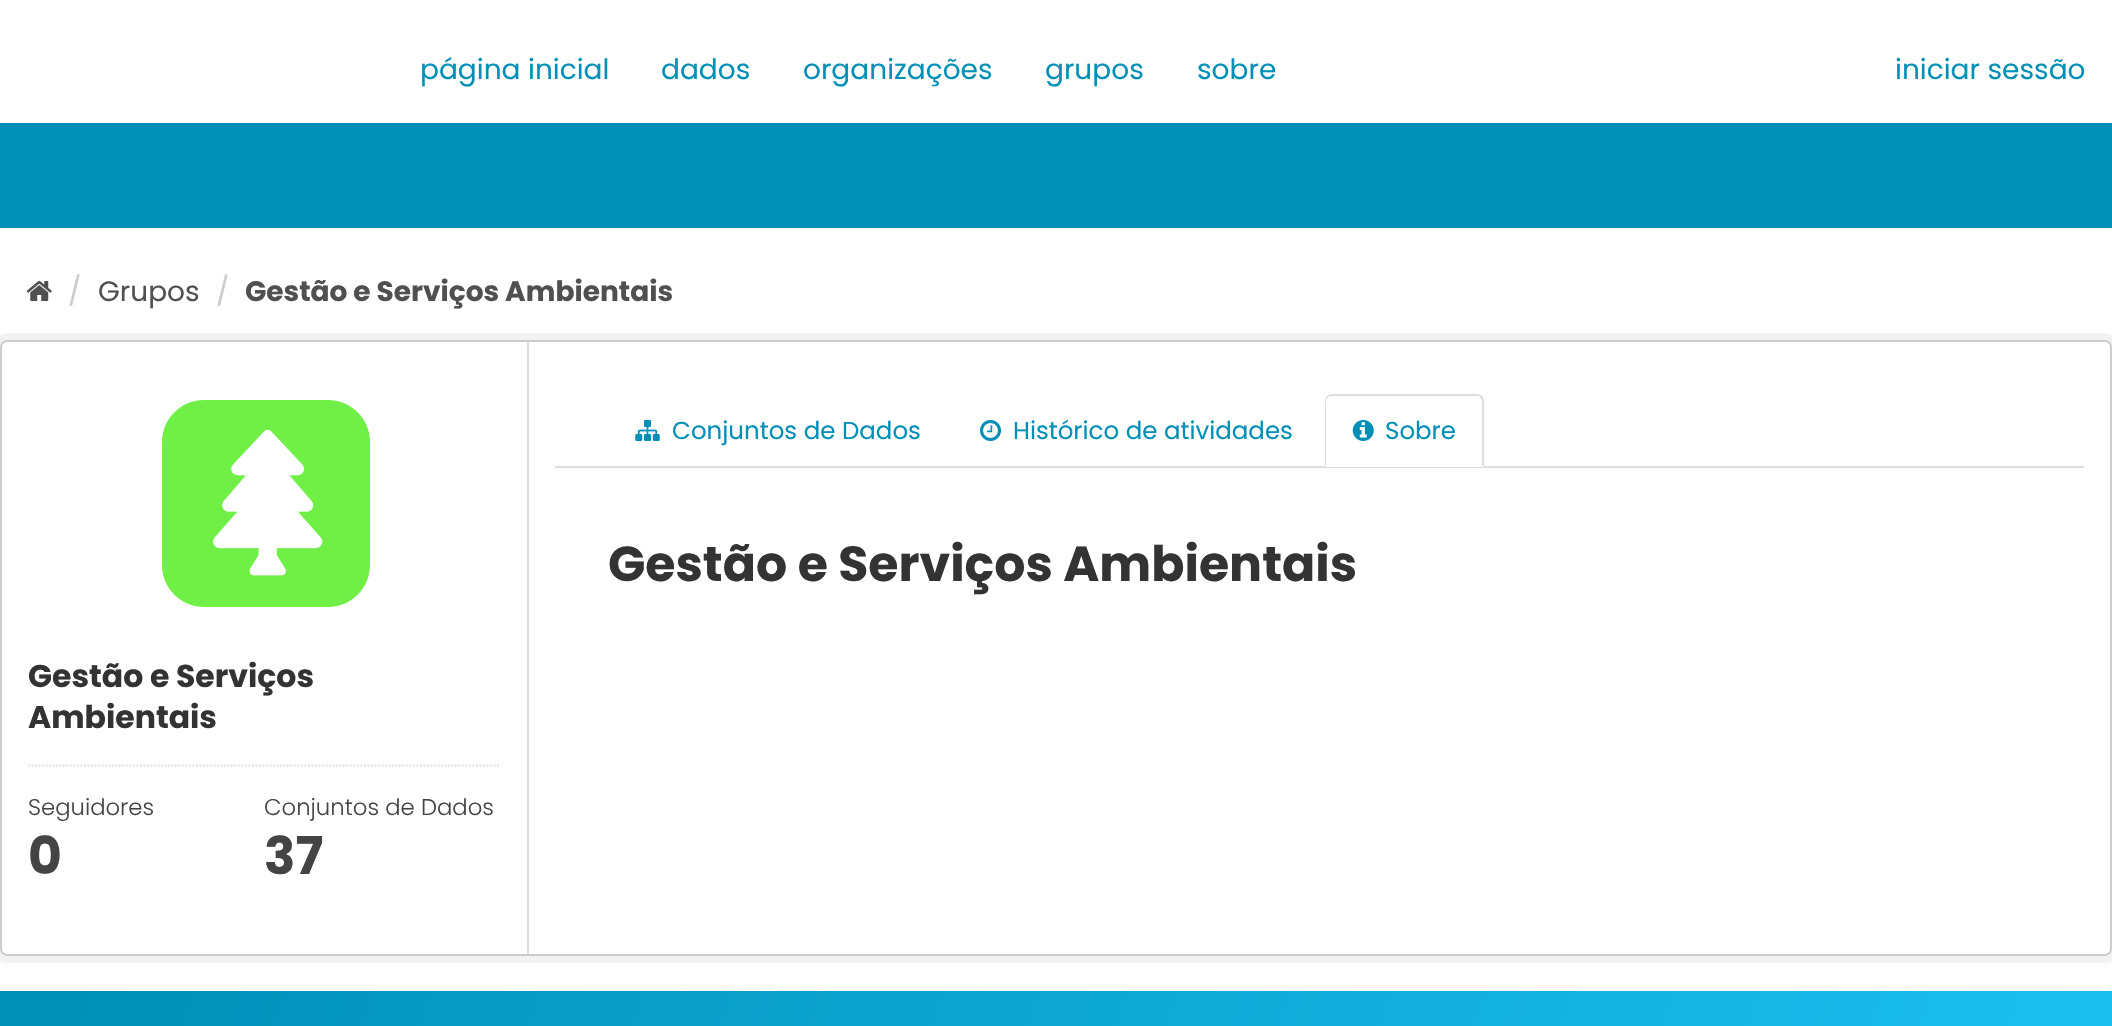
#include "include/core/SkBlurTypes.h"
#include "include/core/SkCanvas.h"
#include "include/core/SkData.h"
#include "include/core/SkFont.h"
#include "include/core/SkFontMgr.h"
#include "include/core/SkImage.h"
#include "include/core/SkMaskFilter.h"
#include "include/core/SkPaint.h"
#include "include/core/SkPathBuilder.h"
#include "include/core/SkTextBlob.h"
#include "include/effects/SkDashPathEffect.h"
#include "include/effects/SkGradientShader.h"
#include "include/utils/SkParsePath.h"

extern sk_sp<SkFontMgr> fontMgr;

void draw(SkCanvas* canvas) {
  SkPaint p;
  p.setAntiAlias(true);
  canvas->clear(SK_ColorWHITE);
  p.setColor(SkColorSetRGB(0, 143, 182));
  canvas->drawRect(SkRect::MakeLTRB(0, 123, 2112, 228), p);
  canvas->drawImageRect(SkImages::DeferredFromEncodedData(SkData::MakeFromFileName("images/1.png")), SkRect::MakeLTRB(26, 281, 52, 301), SkSamplingOptions());
  p.setStyle(SkPaint::kStroke_Style);
  p.setStrokeWidth(7);
  p.setColor(SkColorSetRGB(242, 242, 242));
  canvas->drawRoundRect(SkRect::MakeLTRB(-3.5f, 336.5f, 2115.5f, 959.5f), 10.5f, 10.5f, p);
  p.setStyle(SkPaint::kFill_Style);
  p.setColor(SK_ColorWHITE);
  canvas->drawRoundRect(SkRect::MakeLTRB(1, 341, 2111, 955), 6, 6, p);
  p.setStyle(SkPaint::kStroke_Style);
  p.setStrokeWidth(2);
  p.setColor(SkColorSetRGB(204, 204, 204));
  canvas->drawRoundRect(SkRect::MakeLTRB(1, 341, 2111, 955), 6, 6, p);
  p.setStyle(SkPaint::kFill_Style);
  p.setColor(SkColorSetRGB(221, 221, 221));
  canvas->drawRect(SkRect::MakeLTRB(527, 341, 529, 954), p);
  canvas->drawRect(SkRect::MakeLTRB(555, 466, 2084, 468), p);
  canvas->drawImageRect(SkImages::DeferredFromEncodedData(SkData::MakeFromFileName("images/2.png")), SkRect::MakeLTRB(635, 420, 660, 441), SkSamplingOptions());
  canvas->drawImageRect(SkImages::DeferredFromEncodedData(SkData::MakeFromFileName("images/3.png")), SkRect::MakeLTRB(980, 420, 1001, 441), SkSamplingOptions());
  p.setColor(SK_ColorWHITE);
  canvas->drawPath(SkPathBuilder().moveTo(1332, 394).lineTo(1477, 394).cubicTo(1481, 394, 1484, 397, 1484, 401).lineTo(1484, 467).lineTo(1325, 467).lineTo(1325, 401).cubicTo(1325, 397, 1328, 394, 1332, 394).close().detach(), p);
  p.setColor(SkColorSetRGB(221, 221, 221));
  canvas->drawPath(SkPathBuilder().moveTo(1332, 394).cubicTo(1330, 394, 1328, 395, 1327, 396).lineTo(1328, 397).cubicTo(1329, 396, 1331, 396, 1332, 396).lineTo(1477, 396).cubicTo(1478, 396, 1480, 396, 1480, 397).lineTo(1482, 396).cubicTo(1481, 395, 1479, 394, 1477, 394).close().detach(), p);
  canvas->drawPath(SkPathBuilder().moveTo(1482, 396).cubicTo(1483, 397, 1484, 399, 1484, 401).lineTo(1484, 467).lineTo(1482, 465).lineTo(1482, 400).lineTo(1480, 397).close().detach(), p);
  canvas->drawPath(SkPathBuilder().moveTo(1327, 396).cubicTo(1326, 397, 1325, 399, 1325, 401).lineTo(1325, 467).lineTo(1326, 466).lineTo(1326, 400).lineTo(1328, 397).close().detach(), p);
  canvas->drawImageRect(SkImages::DeferredFromEncodedData(SkData::MakeFromFileName("images/4.png")), SkRect::MakeLTRB(1352, 420, 1374, 441), SkSamplingOptions());
  canvas->drawImageRect(SkImages::DeferredFromEncodedData(SkData::MakeFromFileName("images/5.png")), SkRect::MakeLTRB(162, 400, 370, 607), SkSamplingOptions());
  p.setStyle(SkPaint::kStroke_Style);
  p.setStrokeWidth(1.8f);
  p.setPathEffect(SkDashPathEffect::Make({{1.75f, 1.75f}}, 0));
  canvas->drawPath(SkPathBuilder().moveTo(28, 765.5f).lineTo(500.5f, 765.5f).detach(), p);
  p.setPathEffect(nullptr);
  p.setStyle(SkPaint::kFill_Style);
  {
    const SkColor colors[] = {SkColorSetRGB(29, 194, 243), SkColorSetRGB(0, 143, 182)};
    const float stops[] = {0, 1};
    const SkPoint ends[] = {{2055, 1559}, {58, 832}};
    p.setShader(SkGradientShader::MakeLinear(ends, colors, stops, 2, SkTileMode::kClamp));
    p.setAlpha(255);
  }
  canvas->drawRect(SkRect::MakeLTRB(0, 991, 2112, 1026), p);
  SkFont font1(fontMgr->matchFamilyStyle("Poppins", SkFontStyle::Normal()), 28);
  font1.setSubpixel(true);
  p.setShader(nullptr);
  p.setColor(SkColorSetRGB(0, 143, 182));
  canvas->drawString("página inicial", 420, 79, font1, p);
  canvas->drawString("dados", 661, 79, font1, p);
  canvas->drawString("organizações", 803, 79, font1, p);
  canvas->drawString("grupos", 1045, 79, font1, p);
  canvas->drawString("sobre", 1197, 79, font1, p);
  canvas->drawString("iniciar sessão", 1895, 79, font1, p);
  p.setColor(SkColorSetRGB(204, 204, 204));
  canvas->drawString("/", 68, 301, font1, p);
  p.setColor(SkColorSetRGB(80, 80, 80));
  canvas->drawString("Grupos", 98, 301, font1, p);
  p.setColor(SkColorSetRGB(204, 204, 204));
  canvas->drawString("/", 216, 301, font1, p);
  SkFont font2(fontMgr->matchFamilyStyle("Poppins", SkFontStyle::Bold()), 28);
  font2.setSubpixel(true);
  p.setColor(SkColorSetRGB(80, 80, 80));
  canvas->drawString("Gestão e Serviços Ambientais", 245, 301, font2, p);
  SkFont font3(fontMgr->matchFamilyStyle("Poppins", SkFontStyle::Normal()), 24.5f);
  font3.setSubpixel(true);
  p.setColor(SkColorSetRGB(0, 143, 182));
  canvas->drawString("Conjuntos de Dados", 672, 439, font3, p);
  canvas->drawString("Histórico de atividades", 1013, 439, font3, p);
  canvas->drawString("Sobre", 1385, 439, font3, p);
  SkFont font4(fontMgr->matchFamilyStyle("Poppins", SkFontStyle::Bold()), 49);
  font4.setSubpixel(true);
  p.setColor(SkColorSetRGB(51, 51, 51));
  canvas->drawString("Gestão e Serviços Ambientais", 608, 581, font4, p);
  SkFont font5(fontMgr->matchFamilyStyle("Poppins", SkFontStyle::Bold()), 31.5f);
  font5.setSubpixel(true);
  canvas->drawString("Gestão e Serviços", 28, 687, font5, p);
  canvas->drawString("Ambientais", 28, 728, font5, p);
  SkFont font6(fontMgr->matchFamilyStyle("Poppins", SkFontStyle(300, SkFontStyle::kNormal_Width, SkFontStyle::kUpright_Slant)), 22.75f);
  font6.setSubpixel(true);
  p.setColor(SkColorSetRGB(68, 68, 68));
  canvas->drawString("Seguidores", 28, 815, font6, p);
  SkFont font7(fontMgr->matchFamilyStyle("Poppins", SkFontStyle::Bold()), 52);
  font7.setSubpixel(true);
  canvas->drawString("0", 28, 874, font7, p);
  canvas->drawString("Conjuntos de Dados", 264, 815, font6, p);
  canvas->drawString("37", 264, 874, font7, p);
}
